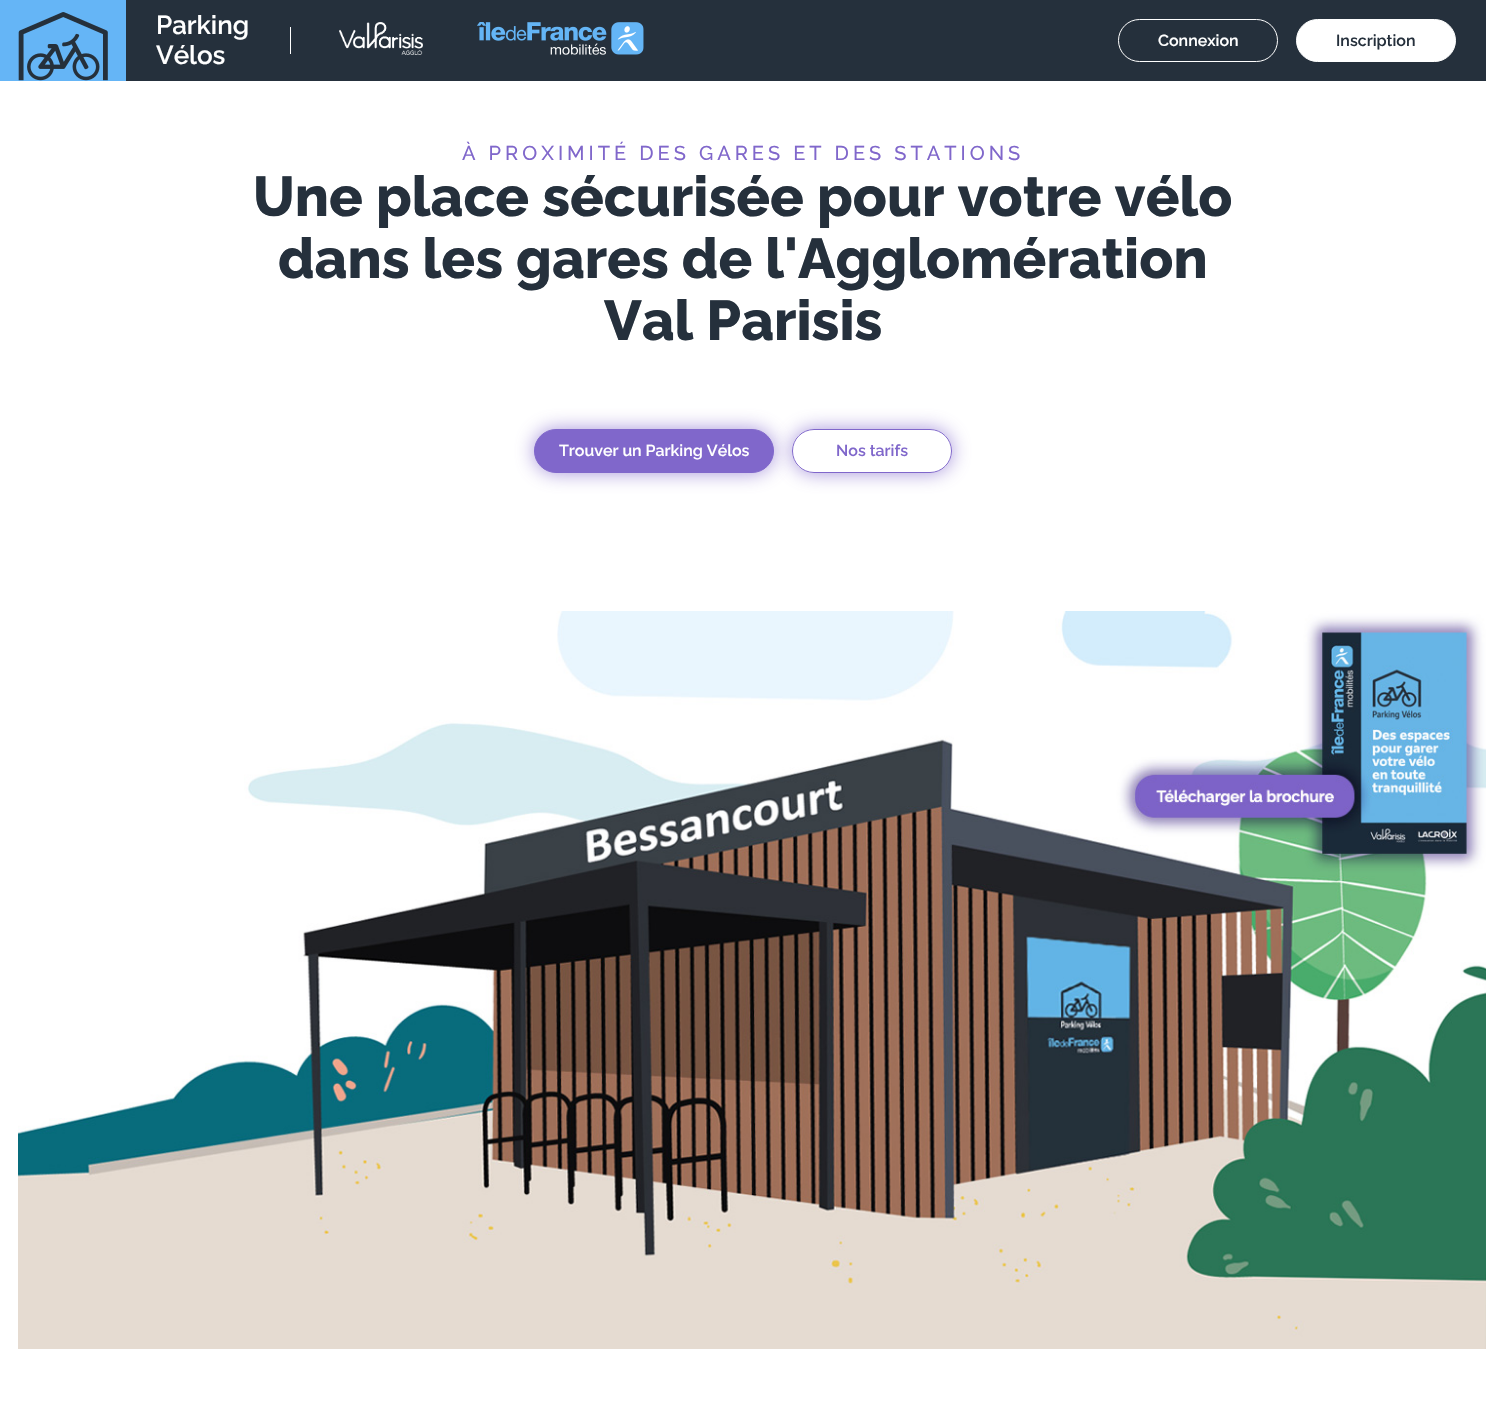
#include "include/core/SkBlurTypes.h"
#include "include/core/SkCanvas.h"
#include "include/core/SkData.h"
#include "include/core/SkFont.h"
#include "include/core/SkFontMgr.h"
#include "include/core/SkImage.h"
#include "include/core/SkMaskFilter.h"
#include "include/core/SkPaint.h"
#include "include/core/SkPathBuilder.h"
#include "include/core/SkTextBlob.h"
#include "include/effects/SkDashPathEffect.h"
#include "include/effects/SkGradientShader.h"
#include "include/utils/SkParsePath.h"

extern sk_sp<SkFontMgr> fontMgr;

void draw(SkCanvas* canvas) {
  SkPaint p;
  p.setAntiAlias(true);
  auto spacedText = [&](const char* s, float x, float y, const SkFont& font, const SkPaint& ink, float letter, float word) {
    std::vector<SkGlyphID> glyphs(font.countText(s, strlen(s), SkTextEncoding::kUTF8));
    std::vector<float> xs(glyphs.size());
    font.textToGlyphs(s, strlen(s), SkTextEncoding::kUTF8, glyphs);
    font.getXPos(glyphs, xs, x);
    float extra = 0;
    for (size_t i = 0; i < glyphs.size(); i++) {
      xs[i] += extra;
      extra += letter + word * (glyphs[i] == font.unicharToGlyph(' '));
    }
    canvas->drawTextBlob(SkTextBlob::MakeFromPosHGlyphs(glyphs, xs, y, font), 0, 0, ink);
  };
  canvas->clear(SK_ColorWHITE);
  p.setColor(SkColorSetRGB(37, 48, 60));
  canvas->drawRect(SkRect::MakeLTRB(126, 0, 1486, 81), p);
  p.setColor(SkColorSetRGB(101, 181, 246));
  canvas->drawRect(SkRect::MakeLTRB(0, 0, 126, 81), p);
  canvas->drawImageRect(SkImages::DeferredFromEncodedData(SkData::MakeFromFileName("images/1.png")), SkRect::MakeLTRB(18, 12, 108, 81), SkSamplingOptions());
  p.setColor(SK_ColorWHITE);
  canvas->drawRect(SkRect::MakeLTRB(290, 27, 291, 54), p);
  canvas->drawImageRect(SkImages::DeferredFromEncodedData(SkData::MakeFromFileName("images/2.png")), SkRect::MakeLTRB(339, 22, 423, 55), SkSamplingOptions());
  canvas->drawImageRect(SkImages::DeferredFromEncodedData(SkData::MakeFromFileName("images/3.png")), SkRect::MakeLTRB(477, 22, 644, 55), SkSamplingOptions());
  p.setStyle(SkPaint::kStroke_Style);
  p.setStrokeWidth(1);
  canvas->drawRoundRect(SkRect::MakeLTRB(1118.5f, 19.5f, 1277.5f, 61.5f), 21, 21, p);
  p.setStyle(SkPaint::kFill_Style);
  canvas->drawRoundRect(SkRect::MakeLTRB(1296.5f, 19.5f, 1455.5f, 61.5f), 21, 21, p);
  p.setStyle(SkPaint::kStroke_Style);
  canvas->drawRoundRect(SkRect::MakeLTRB(1296.5f, 19.5f, 1455.5f, 61.5f), 21, 21, p);
  p.setStyle(SkPaint::kFill_Style);
  p.setColor(SkColorSetARGB(181, 128, 103, 203));
  p.setMaskFilter(SkMaskFilter::MakeBlur(kNormal_SkBlurStyle, 9.5f));
  canvas->drawRoundRect(SkRect::MakeLTRB(534, 429, 774, 473), 22, 22, p);
  p.setMaskFilter(nullptr);
  p.setColor(SkColorSetRGB(128, 103, 203));
  canvas->drawRoundRect(SkRect::MakeLTRB(534.5f, 429.5f, 773.5f, 472.5f), 21.5f, 21.5f, p);
  p.setStyle(SkPaint::kStroke_Style);
  canvas->drawRoundRect(SkRect::MakeLTRB(534.5f, 429.5f, 773.5f, 472.5f), 21.5f, 21.5f, p);
  canvas->save();
  canvas->clipPath(SkPathBuilder(SkPathFillType::kEvenOdd).moveTo(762, 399).lineTo(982, 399).lineTo(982, 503).lineTo(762, 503).close().moveTo(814, 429).lineTo(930, 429).cubicTo(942, 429, 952, 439, 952, 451).cubicTo(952, 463, 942, 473, 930, 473).lineTo(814, 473).cubicTo(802, 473, 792, 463, 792, 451).cubicTo(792, 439, 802, 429, 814, 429).close().detach(), true);
  p.setStyle(SkPaint::kFill_Style);
  p.setColor(SkColorSetARGB(181, 128, 103, 203));
  p.setMaskFilter(SkMaskFilter::MakeBlur(kNormal_SkBlurStyle, 9.5f));
  canvas->drawRoundRect(SkRect::MakeLTRB(792, 429, 952, 473), 22, 22, p);
  p.setMaskFilter(nullptr);
  canvas->restore();
  p.setStyle(SkPaint::kStroke_Style);
  p.setColor(SkColorSetRGB(128, 103, 203));
  canvas->drawRoundRect(SkRect::MakeLTRB(792.5f, 429.5f, 951.5f, 472.5f), 21.5f, 21.5f, p);
  canvas->drawImageRect(SkImages::DeferredFromEncodedData(SkData::MakeFromFileName("images/4.png")), SkRect::MakeLTRB(18, 611, 1486, 1349), SkSamplingOptions());
  SkFont font1(fontMgr->matchFamilyStyle("Raleway", SkFontStyle(600, SkFontStyle::kNormal_Width, SkFontStyle::kUpright_Slant)), 26);
  font1.setSubpixel(true);
  p.setStyle(SkPaint::kFill_Style);
  p.setColor(SK_ColorWHITE);
  canvas->drawString("Parking", 156, 34, font1, p);
  canvas->drawString("Vélos", 156, 64, font1, p);
  SkFont font2(fontMgr->matchFamilyStyle("Raleway", SkFontStyle(600, SkFontStyle::kNormal_Width, SkFontStyle::kUpright_Slant)), 16);
  font2.setSubpixel(true);
  canvas->drawString("Connexion", 1158, 46, font2, p);
  p.setColor(SkColorSetRGB(37, 48, 60));
  canvas->drawString("Inscription", 1336, 46, font2, p);
  SkFont font3(fontMgr->matchFamilyStyle("Raleway", SkFontStyle(500, SkFontStyle::kNormal_Width, SkFontStyle::kUpright_Slant)), 20);
  font3.setSubpixel(true);
  p.setColor(SkColorSetRGB(128, 103, 203));
  spacedText("À PROXIMITÉ DES GARES ET DES STATIONS", 462, 160, font3, p, 4, 0);
  SkFont font4(fontMgr->matchFamilyStyle("Raleway", SkFontStyle(800, SkFontStyle::kNormal_Width, SkFontStyle::kUpright_Slant)), 56);
  font4.setSubpixel(true);
  p.setColor(SkColorSetRGB(37, 48, 60));
  canvas->drawString("Une place sécurisée pour votre vélo", 253, 216, font4, p);
  canvas->drawString("dans les gares de l'Agglomération", 278, 278, font4, p);
  canvas->drawString("Val Parisis", 604, 340, font4, p);
  p.setColor(SK_ColorWHITE);
  canvas->drawString("Trouver un Parking Vélos", 559, 456, font2, p);
  p.setColor(SkColorSetRGB(128, 103, 203));
  canvas->drawString("Nos tarifs", 836, 456, font2, p);
}
